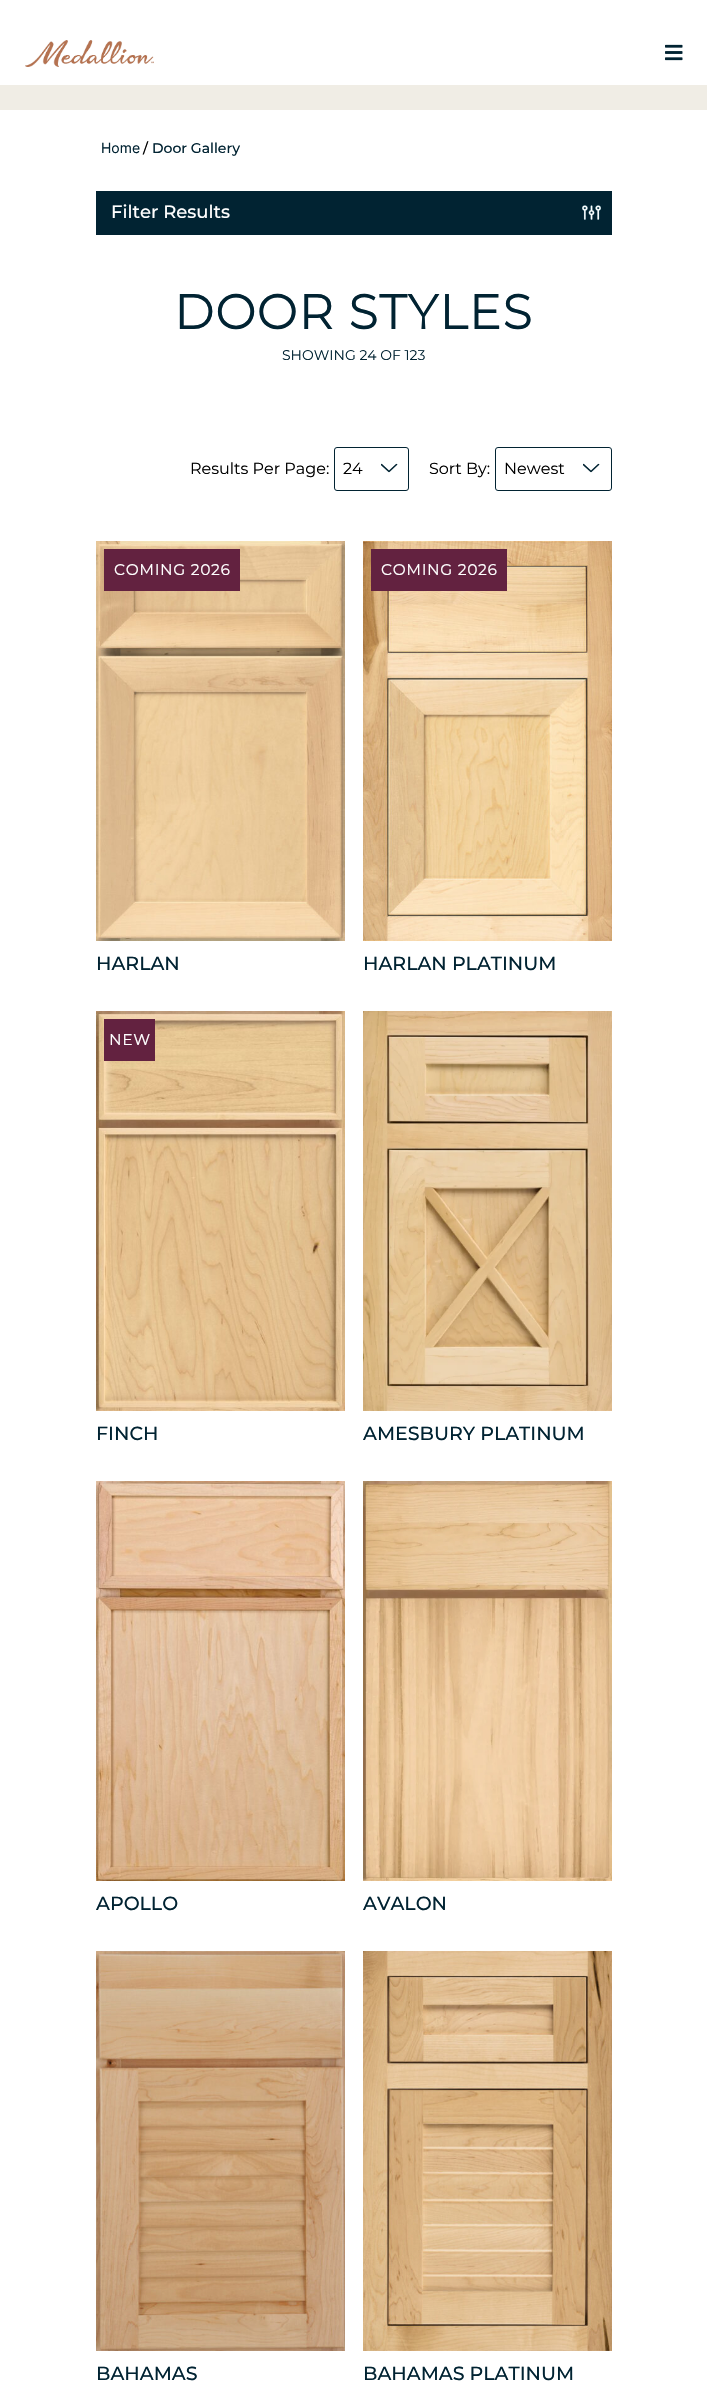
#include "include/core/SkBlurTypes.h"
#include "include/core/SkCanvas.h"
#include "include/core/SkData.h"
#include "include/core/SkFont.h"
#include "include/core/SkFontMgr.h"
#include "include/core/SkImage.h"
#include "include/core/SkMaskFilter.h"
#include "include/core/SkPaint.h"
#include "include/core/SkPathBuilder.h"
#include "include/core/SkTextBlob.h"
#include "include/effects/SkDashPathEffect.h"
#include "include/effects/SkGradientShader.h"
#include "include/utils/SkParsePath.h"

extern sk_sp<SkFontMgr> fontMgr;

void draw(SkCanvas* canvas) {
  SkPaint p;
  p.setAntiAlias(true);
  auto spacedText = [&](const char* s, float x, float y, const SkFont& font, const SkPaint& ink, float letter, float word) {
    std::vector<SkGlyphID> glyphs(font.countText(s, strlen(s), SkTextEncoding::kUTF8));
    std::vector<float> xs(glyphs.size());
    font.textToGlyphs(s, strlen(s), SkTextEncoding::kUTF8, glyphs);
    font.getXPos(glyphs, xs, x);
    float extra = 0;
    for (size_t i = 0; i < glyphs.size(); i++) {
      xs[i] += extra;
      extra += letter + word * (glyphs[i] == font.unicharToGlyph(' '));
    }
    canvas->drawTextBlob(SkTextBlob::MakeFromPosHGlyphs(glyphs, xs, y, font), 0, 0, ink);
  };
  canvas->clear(SK_ColorWHITE);
  canvas->drawImageRect(SkImages::DeferredFromEncodedData(SkData::MakeFromFileName("images/1.png")), SkRect::MakeLTRB(25, 40, 154, 67), SkSamplingOptions());
  p.setColor(SkColorSetRGB(240, 237, 229));
  canvas->drawRect(SkRect::MakeLTRB(0, 85, 707, 110), p);
  canvas->drawImageRect(SkImages::DeferredFromEncodedData(SkData::MakeFromFileName("images/2.png")), SkRect::MakeLTRB(665, 44, 683, 61), SkSamplingOptions());
  p.setColor(SkColorSetRGB(1, 35, 50));
  canvas->drawRect(SkRect::MakeLTRB(96, 191, 612, 235), p);
  canvas->drawImageRect(SkImages::DeferredFromEncodedData(SkData::MakeFromFileName("images/3.png")), SkRect::MakeLTRB(582, 205, 601, 220), SkSamplingOptions());
  p.setStyle(SkPaint::kStroke_Style);
  p.setStrokeWidth(1);
  canvas->drawRoundRect(SkRect::MakeLTRB(334.5f, 447.5f, 408.5f, 490.5f), 2.5f, 2.5f, p);
  canvas->save();
  canvas->clipPath(SkPathBuilder().moveTo(398, 463.5f).lineTo(398, 472.5f).lineTo(381, 472.5f).lineTo(381, 463.5f).close().detach(), true);
  p.setStrokeWidth(1.6f);
  p.setStrokeCap(SkPaint::kRound_Cap);
  p.setStrokeJoin(SkPaint::kRound_Join);
  canvas->drawPath(SkPathBuilder().moveTo(396.5f, 464.5f).lineTo(389, 471.5f).lineTo(381.5f, 464.5f).detach(), p);
  canvas->restore();
  p.setStrokeWidth(1);
  p.setStrokeCap(SkPaint::kButt_Cap);
  p.setStrokeJoin(SkPaint::kMiter_Join);
  canvas->drawRoundRect(SkRect::MakeLTRB(495.5f, 447.5f, 611.5f, 490.5f), 2.5f, 2.5f, p);
  canvas->save();
  canvas->clipPath(SkPathBuilder().moveTo(600, 463.5f).lineTo(600, 472.5f).lineTo(583, 472.5f).lineTo(583, 463.5f).close().detach(), true);
  p.setStrokeWidth(1.6f);
  p.setStrokeCap(SkPaint::kRound_Cap);
  p.setStrokeJoin(SkPaint::kRound_Join);
  canvas->drawPath(SkPathBuilder().moveTo(598.5f, 464.5f).lineTo(591, 471.5f).lineTo(583.5f, 464.5f).detach(), p);
  canvas->restore();
  canvas->drawImageRect(SkImages::DeferredFromEncodedData(SkData::MakeFromFileName("images/4.png")), SkRect::MakeLTRB(96, 541, 345, 941), SkSamplingOptions());
  p.setStyle(SkPaint::kFill_Style);
  p.setColor(SkColorSetRGB(99, 34, 64));
  canvas->drawRect(SkRect::MakeLTRB(104, 549, 240, 591), p);
  canvas->drawImageRect(SkImages::DeferredFromEncodedData(SkData::MakeFromFileName("images/5.png")), SkRect::MakeLTRB(363, 541, 612, 941), SkSamplingOptions());
  canvas->drawRect(SkRect::MakeLTRB(371, 549, 507, 591), p);
  canvas->drawImageRect(SkImages::DeferredFromEncodedData(SkData::MakeFromFileName("images/6.png")), SkRect::MakeLTRB(96, 1011, 345, 1411), SkSamplingOptions());
  canvas->drawRect(SkRect::MakeLTRB(104, 1019, 155, 1061), p);
  canvas->drawImageRect(SkImages::DeferredFromEncodedData(SkData::MakeFromFileName("images/7.png")), SkRect::MakeLTRB(363, 1011, 612, 1411), SkSamplingOptions());
  canvas->drawImageRect(SkImages::DeferredFromEncodedData(SkData::MakeFromFileName("images/8.png")), SkRect::MakeLTRB(96, 1481, 345, 1881), SkSamplingOptions());
  canvas->drawImageRect(SkImages::DeferredFromEncodedData(SkData::MakeFromFileName("images/9.png")), SkRect::MakeLTRB(363, 1481, 612, 1881), SkSamplingOptions());
  canvas->drawImageRect(SkImages::DeferredFromEncodedData(SkData::MakeFromFileName("images/10.png")), SkRect::MakeLTRB(96, 1951, 345, 2351), SkSamplingOptions());
  canvas->drawImageRect(SkImages::DeferredFromEncodedData(SkData::MakeFromFileName("images/11.png")), SkRect::MakeLTRB(363, 1951, 612, 2351), SkSamplingOptions());
  SkFont font1(fontMgr->matchFamilyStyle("Inter", SkFontStyle::Normal()), 14);
  font1.setSubpixel(true);
  p.setColor(SkColorSetRGB(1, 35, 50));
  canvas->drawString("Home", 101, 153, font1, p);
  SkFont font2(fontMgr->matchFamilyStyle("Montserrat", SkFontStyle(500, SkFontStyle::kNormal_Width, SkFontStyle::kUpright_Slant)), 14);
  font2.setSubpixel(true);
  p.setColor(SK_ColorBLACK);
  canvas->drawString("/", 143, 153, font2, p);
  p.setColor(SkColorSetRGB(1, 35, 50));
  canvas->drawString("Door Gallery", 152, 153, font2, p);
  SkFont font3(fontMgr->matchFamilyStyle("Montserrat", SkFontStyle(500, SkFontStyle::kNormal_Width, SkFontStyle::kUpright_Slant)), 18);
  font3.setSubpixel(true);
  p.setColor(SK_ColorWHITE);
  canvas->drawString("Filter Results", 111, 218, font3, p);
  SkFont font4(fontMgr->matchFamilyStyle("Montserrat", SkFontStyle::Bold()), 48);
  font4.setSubpixel(true);
  p.setColor(SkColorSetRGB(1, 35, 50));
  spacedText("DOOR STYLES", 174, 329, font4, p, 1.5f, 0);
  SkFont font5(fontMgr->matchFamilyStyle("Montserrat", SkFontStyle::Normal()), 14);
  font5.setSubpixel(true);
  canvas->drawString("SHOWING 24 OF 123", 282, 360, font5, p);
  SkFont font6(fontMgr->matchFamilyStyle("Montserrat", SkFontStyle::Normal()), 16);
  font6.setSubpixel(true);
  p.setColor(SK_ColorBLACK);
  canvas->drawString("Results Per Page:", 190, 474, font6, p);
  canvas->drawString("24", 343, 474, font6, p);
  canvas->drawString("Sort By:", 429, 474, font6, p);
  canvas->drawString("Newest", 504, 474, font6, p);
  SkFont font7(fontMgr->matchFamilyStyle("Montserrat", SkFontStyle::Bold()), 15);
  font7.setSubpixel(true);
  p.setColor(SK_ColorWHITE);
  spacedText("COMING 2026", 114, 575, font7, p, 1, 0);
  SkFont font8(fontMgr->matchFamilyStyle("Montserrat", SkFontStyle(500, SkFontStyle::kNormal_Width, SkFontStyle::kUpright_Slant)), 19);
  font8.setSubpixel(true);
  p.setColor(SkColorSetRGB(1, 35, 50));
  canvas->drawString("HARLAN", 96, 970, font8, p);
  p.setColor(SK_ColorWHITE);
  spacedText("COMING 2026", 381, 575, font7, p, 1, 0);
  p.setColor(SkColorSetRGB(1, 35, 50));
  canvas->drawString("HARLAN PLATINUM", 363, 970, font8, p);
  p.setColor(SK_ColorWHITE);
  spacedText("NEW", 109, 1045, font7, p, 1, 0);
  p.setColor(SkColorSetRGB(1, 35, 50));
  canvas->drawString("FINCH", 96, 1440, font8, p);
  canvas->drawString("AMESBURY PLATINUM", 363, 1440, font8, p);
  canvas->drawString("APOLLO", 96, 1910, font8, p);
  canvas->drawString("AVALON", 363, 1910, font8, p);
  canvas->drawString("BAHAMAS", 96, 2380, font8, p);
  canvas->drawString("BAHAMAS PLATINUM", 363, 2380, font8, p);
}
